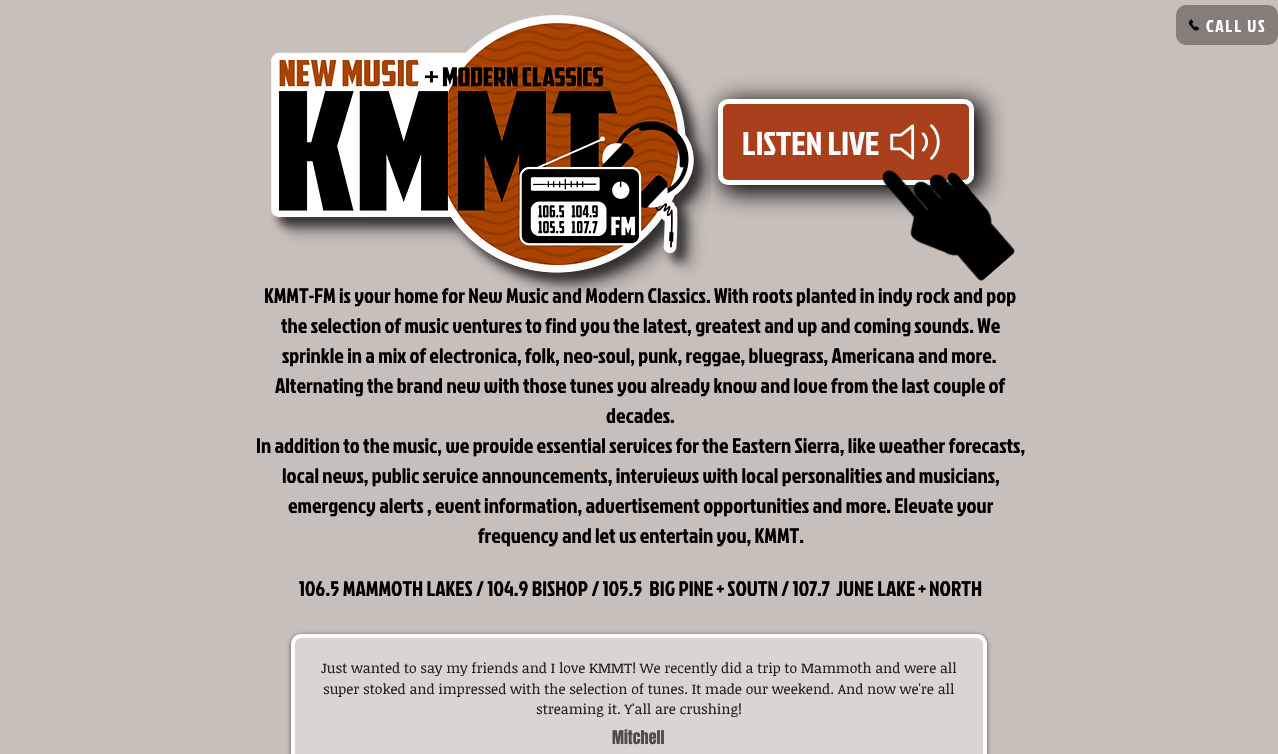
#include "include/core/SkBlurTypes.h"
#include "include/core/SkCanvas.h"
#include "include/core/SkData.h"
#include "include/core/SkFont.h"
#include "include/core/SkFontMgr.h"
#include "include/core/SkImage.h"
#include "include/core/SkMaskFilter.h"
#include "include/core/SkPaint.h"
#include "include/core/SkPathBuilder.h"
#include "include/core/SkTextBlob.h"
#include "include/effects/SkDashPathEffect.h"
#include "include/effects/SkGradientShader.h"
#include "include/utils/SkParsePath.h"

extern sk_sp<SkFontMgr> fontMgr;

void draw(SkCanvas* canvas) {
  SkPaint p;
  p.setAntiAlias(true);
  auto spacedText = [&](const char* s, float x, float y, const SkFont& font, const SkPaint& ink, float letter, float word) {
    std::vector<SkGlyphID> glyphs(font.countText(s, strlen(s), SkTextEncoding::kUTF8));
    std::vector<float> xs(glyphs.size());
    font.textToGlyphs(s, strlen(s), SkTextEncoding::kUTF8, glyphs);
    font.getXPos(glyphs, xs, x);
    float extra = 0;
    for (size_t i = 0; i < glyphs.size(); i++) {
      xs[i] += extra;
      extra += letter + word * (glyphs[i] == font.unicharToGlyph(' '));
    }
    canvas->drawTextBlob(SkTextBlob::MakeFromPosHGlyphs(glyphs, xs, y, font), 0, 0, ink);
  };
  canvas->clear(SkColorSetRGB(199, 191, 185));
  p.setColor(SkColorSetRGB(133, 125, 119));
  canvas->drawRoundRect(SkRect::MakeLTRB(1176, 5, 1278, 45), 10, 10, p);
  canvas->drawImageRect(SkImages::DeferredFromEncodedData(SkData::MakeFromFileName("images/1.png")), SkRect::MakeLTRB(1188, 19, 1200, 31), SkSamplingOptions());
  p.setColor(SK_ColorBLACK);
  p.setMaskFilter(SkMaskFilter::MakeBlur(kNormal_SkBlurStyle, 11.5f));
  canvas->drawRoundRect(SkRect::MakeLTRB(721, 101, 983, 193), 13, 13, p);
  p.setMaskFilter(nullptr);
  p.setColor(SkColorSetRGB(170, 64, 27));
  canvas->drawRoundRect(SkRect::MakeLTRB(720.5f, 101.5f, 971.5f, 182.5f), 7.5f, 7.5f, p);
  p.setStyle(SkPaint::kStroke_Style);
  p.setStrokeWidth(5);
  p.setColor(SK_ColorWHITE);
  canvas->drawRoundRect(SkRect::MakeLTRB(720.5f, 101.5f, 971.5f, 182.5f), 7.5f, 7.5f, p);
  canvas->drawImageRect(SkImages::DeferredFromEncodedData(SkData::MakeFromFileName("images/3.png")), SkRect::MakeLTRB(890, 124, 940, 160), SkSamplingOptions());
  canvas->drawImageRect(SkImages::DeferredFromEncodedData(SkData::MakeFromFileName("images/4.png")), SkRect::MakeLTRB(882, 170, 1015, 281), SkSamplingOptions());
  canvas->save();
  canvas->clipPath(SkPathBuilder(SkPathFillType::kEvenOdd).moveTo(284, 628).lineTo(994, 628).lineTo(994, 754).lineTo(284, 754).close().moveTo(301, 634).lineTo(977, 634).cubicTo(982.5f, 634, 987, 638.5f, 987, 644).lineTo(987, 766).cubicTo(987, 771.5f, 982.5f, 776, 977, 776).lineTo(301, 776).cubicTo(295.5f, 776, 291, 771.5f, 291, 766).lineTo(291, 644).cubicTo(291, 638.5f, 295.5f, 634, 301, 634).close().detach(), true);
  p.setStyle(SkPaint::kFill_Style);
  p.setColor(SkColorSetARGB(153, 0, 0, 0));
  p.setMaskFilter(SkMaskFilter::MakeBlur(kNormal_SkBlurStyle, 2));
  canvas->drawRoundRect(SkRect::MakeLTRB(291, 635, 987, 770), 10, 10, p);
  p.setMaskFilter(nullptr);
  canvas->restore();
  p.setColor(SkColorSetARGB(89, 255, 255, 255));
  canvas->drawRoundRect(SkRect::MakeLTRB(293, 636, 985, 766), 8, 8, p);
  p.setStyle(SkPaint::kStroke_Style);
  p.setStrokeWidth(4);
  p.setColor(SK_ColorWHITE);
  canvas->drawRoundRect(SkRect::MakeLTRB(293, 636, 985, 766), 8, 8, p);
  SkFont font1(fontMgr->matchFamilyStyle("Jockey One", SkFontStyle::Normal()), 17);
  font1.setSubpixel(true);
  p.setStyle(SkPaint::kFill_Style);
  spacedText("CALL US", 1206, 32, font1, p, 1.75f, 0);
  SkFont font2(fontMgr->matchFamilyStyle("Jockey One", SkFontStyle::Normal()), 33);
  font2.setSubpixel(true);
  canvas->drawString("LISTEN LIVE", 742, 155, font2, p);
  SkFont font3(fontMgr->matchFamilyStyle("Jockey One", SkFontStyle::Normal()), 21);
  font3.setSubpixel(true);
  p.setColor(SK_ColorBLACK);
  canvas->drawString("KMMT-FM is your home for New Music and Modern Classics. With roots planted in indy rock and pop", 264, 303, font3, p);
  canvas->drawImageRect(SkImages::DeferredFromEncodedData(SkData::MakeFromFileName("images/2.png")), SkRect::MakeLTRB(270, 14, 711, 293), SkSamplingOptions());
  canvas->drawString("the selection of music ventures to find you the latest, greatest and up and coming sounds. We", 281, 333, font3, p);
  canvas->drawString("sprinkle in a mix of electronica, folk, neo-soul, punk, reggae, bluegrass, Americana and more.", 282, 363, font3, p);
  canvas->drawString("Alternating the brand new with those tunes you already know and love from the last couple of", 275, 393, font3, p);
  canvas->drawString("decades.", 606, 423, font3, p);
  canvas->drawString("In addition to the music, we provide essential services for the Eastern Sierra, like weather forecasts,", 256, 453, font3, p);
  canvas->drawString("local news, public service announcements, interviews with local personalities and musicians,", 282, 483, font3, p);
  canvas->drawString("emergency alerts , event information, advertisement opportunities and more. Elevate your", 288, 513, font3, p);
  canvas->drawString("frequency and let us entertain you, KMMT.", 478, 543, font3, p);
  canvas->drawString("106.5 MAMMOTH LAKES / 104.9 BISHOP / 105.5  BIG PINE + SOUTN / 107.7  JUNE LAKE + NORTH", 299, 596, font3, p);
  SkFont font4(fontMgr->matchFamilyStyle("Noticia Text", SkFontStyle::Normal()), 14);
  font4.setSubpixel(true);
  p.setColor(SkColorSetRGB(33, 32, 32));
  canvas->drawString("Just wanted to say my friends and I love KMMT! We recently did a trip to Mammoth and were all", 321, 673, font4, p);
  canvas->drawString("super stoked and impressed with the selection of tunes. It made our weekend. And now we're all", 323, 694, font4, p);
  canvas->drawString("streaming it. Y'all are crushing!", 536, 714, font4, p);
  SkFont font5(fontMgr->matchFamilyStyle("Anton", SkFontStyle::Normal()), 16);
  font5.setSubpixel(true);
  p.setColor(SkColorSetRGB(77, 75, 75));
  canvas->drawString("Mitchell", 612, 744, font5, p);
}
